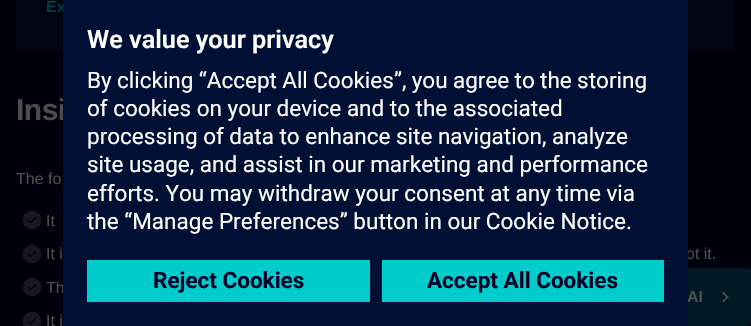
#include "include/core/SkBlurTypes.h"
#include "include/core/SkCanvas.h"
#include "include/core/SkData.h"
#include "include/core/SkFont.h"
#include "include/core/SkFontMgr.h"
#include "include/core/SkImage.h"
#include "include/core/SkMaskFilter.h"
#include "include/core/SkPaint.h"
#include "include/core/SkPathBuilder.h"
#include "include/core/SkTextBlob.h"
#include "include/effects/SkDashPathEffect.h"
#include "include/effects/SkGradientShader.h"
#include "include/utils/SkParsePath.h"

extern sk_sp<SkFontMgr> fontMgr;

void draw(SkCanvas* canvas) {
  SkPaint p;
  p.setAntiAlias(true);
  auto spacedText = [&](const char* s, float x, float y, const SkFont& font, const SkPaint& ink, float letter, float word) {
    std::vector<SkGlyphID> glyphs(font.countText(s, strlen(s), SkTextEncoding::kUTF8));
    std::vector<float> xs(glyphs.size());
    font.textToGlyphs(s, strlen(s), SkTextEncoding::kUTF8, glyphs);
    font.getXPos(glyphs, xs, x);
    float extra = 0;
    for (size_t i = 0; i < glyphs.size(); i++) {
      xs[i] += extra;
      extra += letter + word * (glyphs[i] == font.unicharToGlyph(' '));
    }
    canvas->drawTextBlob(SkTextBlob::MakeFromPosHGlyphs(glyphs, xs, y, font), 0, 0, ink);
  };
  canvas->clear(SkColorSetRGB(0, 0, 12));
  p.setColor(SkColorSetRGB(0, 5, 16));
  canvas->drawRect(SkRect::MakeLTRB(16, 0, 735, 50), p);
  canvas->drawImageRect(SkImages::DeferredFromEncodedData(SkData::MakeFromFileName("images/1.png")), SkRect::MakeLTRB(22, 210, 42, 230), SkSamplingOptions());
  canvas->drawImageRect(SkImages::DeferredFromEncodedData(SkData::MakeFromFileName("images/1.png")), SkRect::MakeLTRB(22, 244, 42, 264), SkSamplingOptions());
  canvas->drawImageRect(SkImages::DeferredFromEncodedData(SkData::MakeFromFileName("images/1.png")), SkRect::MakeLTRB(22, 277, 42, 297), SkSamplingOptions());
  canvas->drawImageRect(SkImages::DeferredFromEncodedData(SkData::MakeFromFileName("images/2.png")), SkRect::MakeLTRB(22, 311, 42, 326), SkSamplingOptions());
  p.setColor(SkColorSetRGB(0, 26, 35));
  canvas->drawRoundRect(SkRect::MakeLTRB(601, 268, 751, 326), 4, 4, p);
  canvas->drawImageRect(SkImages::DeferredFromEncodedData(SkData::MakeFromFileName("images/3.png")), SkRect::MakeLTRB(722, 291, 729, 303), SkSamplingOptions());
  SkFont font1(fontMgr->matchFamilyStyle("Liberation Sans", SkFontStyle::Bold()), 16);
  font1.setSubpixel(true);
  p.setColor(SkColorSetRGB(0, 61, 61));
  canvas->drawString("Ex", 46, 12, font1, p);
  SkFont font2(fontMgr->matchFamilyStyle("Liberation Sans", SkFontStyle::Bold()), 30);
  font2.setSubpixel(true);
  p.setColor(SkColorSetRGB(77, 77, 77));
  spacedText("Insi", 16, 120, font2, p, -0.5f, 0);
  SkFont font3(fontMgr->matchFamilyStyle("Liberation Sans", SkFontStyle::Normal()), 16);
  font3.setSubpixel(true);
  canvas->drawString("The fo", 16, 184, font3, p);
  canvas->drawString("It", 46, 226, font3, p);
  canvas->drawString("It i", 46, 259, font3, p);
  canvas->drawString("ot it.", 686, 259, font3, p);
  canvas->drawString("Th", 46, 293, font3, p);
  canvas->drawString("It i", 46, 326, font3, p);
  spacedText("AI", 687, 302, font1, p, 0, -1);
  p.setColor(SkColorSetRGB(0, 16, 52));
  canvas->drawRect(SkRect::MakeLTRB(63, 0, 688, 326), p);
  SkFont font4(fontMgr->matchFamilyStyle("Roboto", SkFontStyle(600, SkFontStyle::kNormal_Width, SkFontStyle::kUpright_Slant)), 25.25f);
  font4.setSubpixel(true);
  p.setColor(SK_ColorWHITE);
  canvas->drawString("We value your privacy", 87, 48, font4, p);
  SkFont font5(fontMgr->matchFamilyStyle("Roboto", SkFontStyle::Normal()), 22.5f);
  font5.setSubpixel(true);
  canvas->drawString("the “Manage Preferences” button in our Cookie Notice.", 87, 229, font5, p);
  canvas->drawString("efforts. You may withdraw your consent at any time via", 87, 201, font5, p);
  canvas->drawString("site usage, and assist in our marketing and performance", 87, 172, font5, p);
  canvas->drawString("processing of data to enhance site navigation, analyze", 87, 144, font5, p);
  canvas->drawString("of cookies on your device and to the associated", 87, 116, font5, p);
  spacedText("By clicking “Accept All Cookies”, you agree to the storing", 87, 88, font5, p, 0, -0.25f);
  p.setColor(SkColorSetRGB(0, 204, 204));
  canvas->drawRect(SkRect::MakeLTRB(382, 260, 664, 302), p);
  SkFont font6(fontMgr->matchFamilyStyle("Roboto", SkFontStyle::Bold()), 22.5f);
  font6.setSubpixel(true);
  p.setColor(SkColorSetRGB(0, 0, 40));
  canvas->drawString("Accept All Cookies", 427, 288, font6, p);
  p.setColor(SkColorSetRGB(0, 204, 204));
  canvas->drawRect(SkRect::MakeLTRB(87, 260, 370, 302), p);
  p.setColor(SkColorSetRGB(0, 0, 40));
  canvas->drawString("Reject Cookies", 153, 288, font6, p);
}
